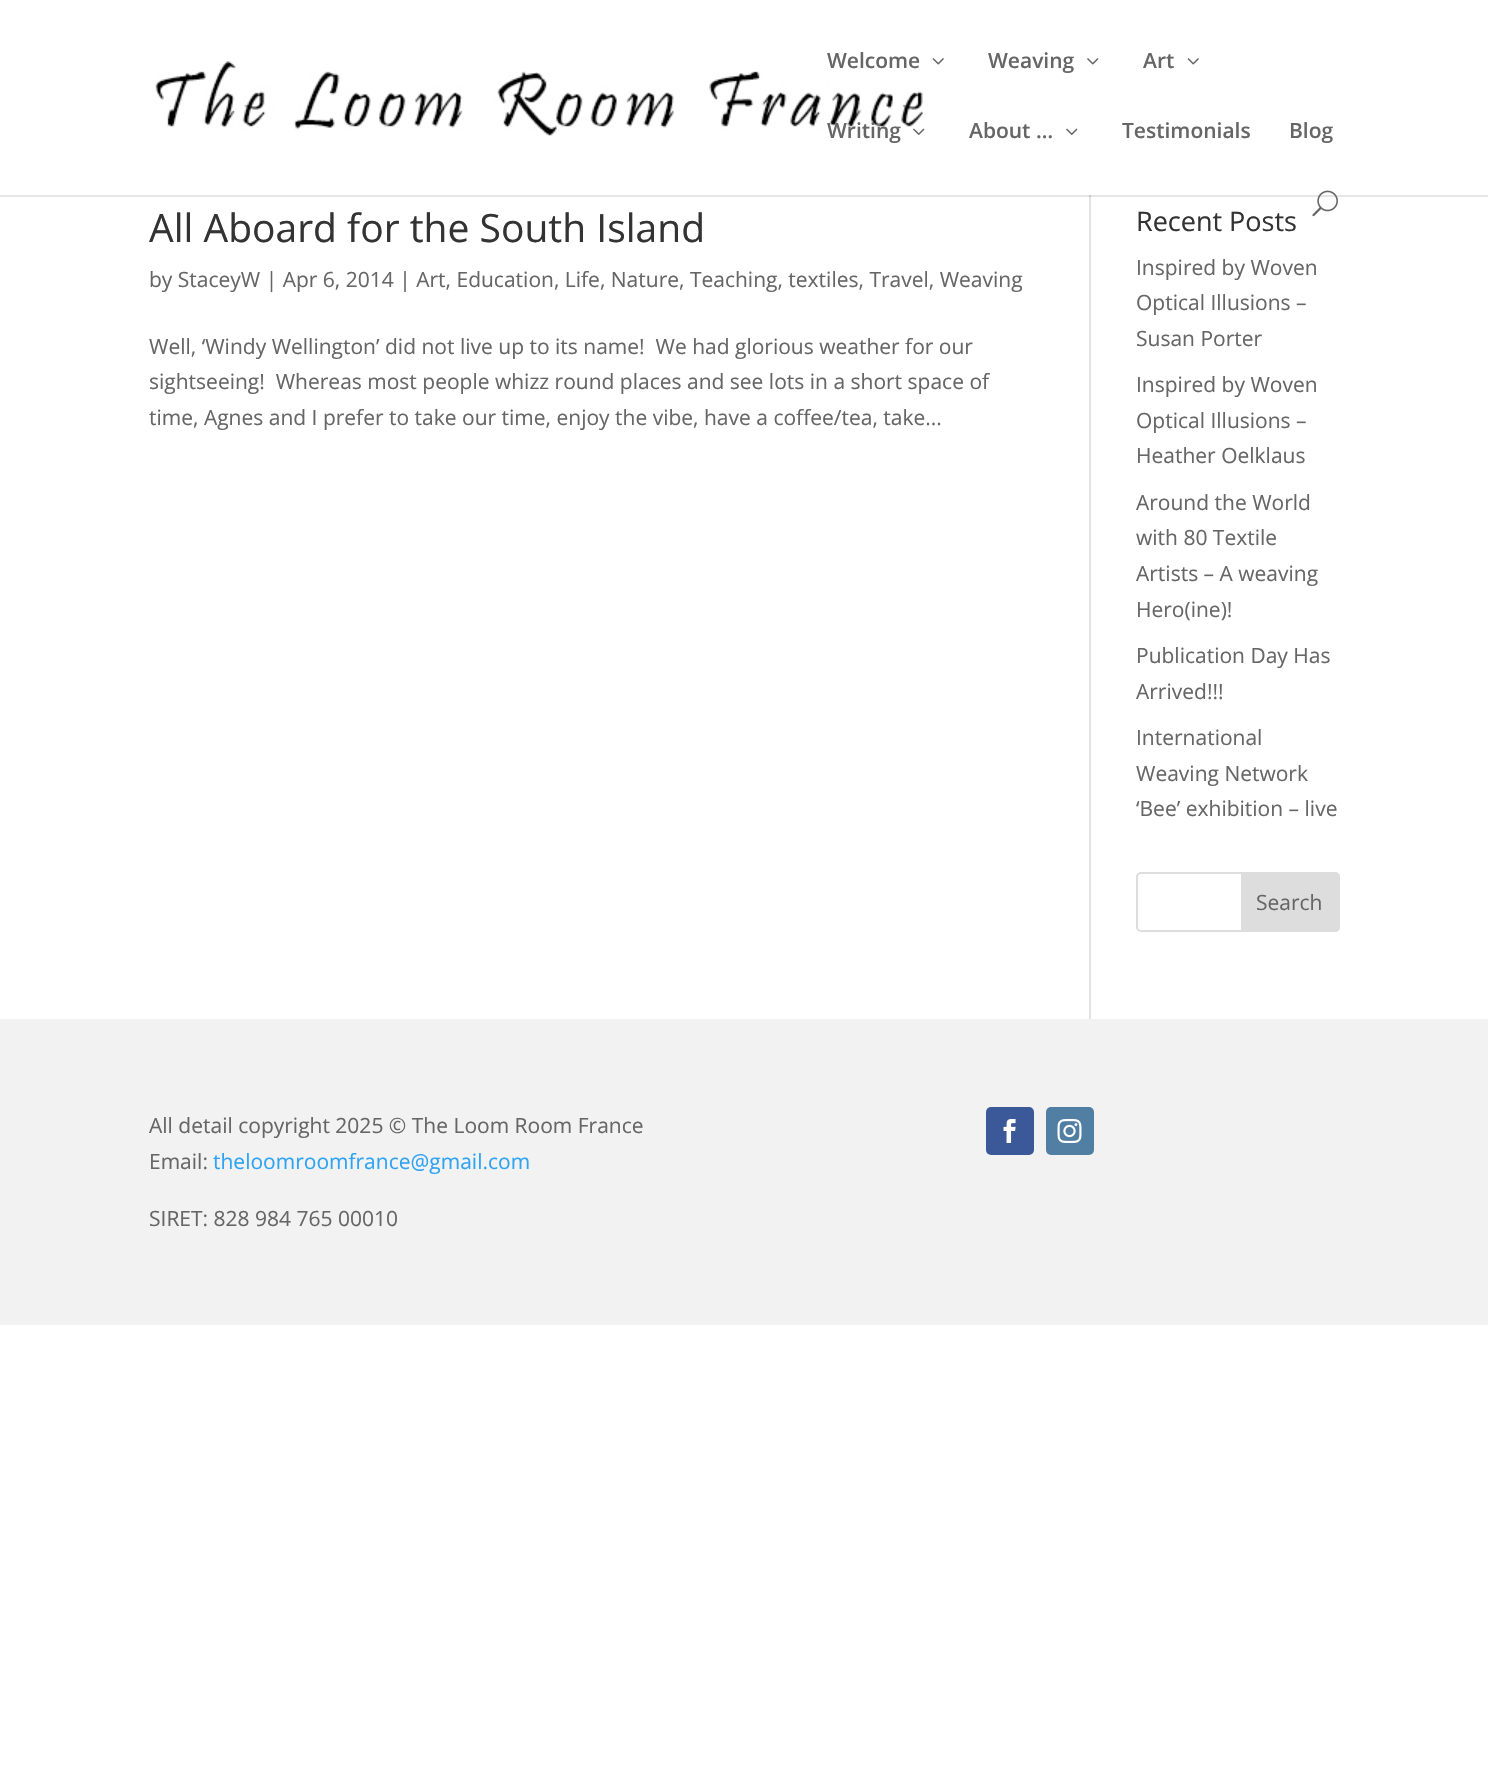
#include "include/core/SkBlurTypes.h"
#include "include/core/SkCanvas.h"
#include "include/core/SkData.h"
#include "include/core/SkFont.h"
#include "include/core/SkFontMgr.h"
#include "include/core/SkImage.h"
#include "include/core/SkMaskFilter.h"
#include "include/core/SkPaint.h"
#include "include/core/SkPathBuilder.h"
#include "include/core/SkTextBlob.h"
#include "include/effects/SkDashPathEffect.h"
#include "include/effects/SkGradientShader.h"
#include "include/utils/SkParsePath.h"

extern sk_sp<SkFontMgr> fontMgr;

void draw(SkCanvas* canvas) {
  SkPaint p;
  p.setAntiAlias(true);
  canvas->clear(SK_ColorWHITE);
  p.setColor(SkColorSetRGB(230, 230, 230));
  canvas->drawRect(SkRect::MakeLTRB(0, 195, 1488, 197), p);
  canvas->drawImageRect(SkImages::DeferredFromEncodedData(SkData::MakeFromFileName("images/1.png")), SkRect::MakeLTRB(155, 61, 923, 136), SkSamplingOptions());
  canvas->drawImageRect(SkImages::DeferredFromEncodedData(SkData::MakeFromFileName("images/2.png")), SkRect::MakeLTRB(932, 58, 944, 65), SkSamplingOptions());
  canvas->drawImageRect(SkImages::DeferredFromEncodedData(SkData::MakeFromFileName("images/3.png")), SkRect::MakeLTRB(1087, 58, 1099, 65), SkSamplingOptions());
  canvas->drawImageRect(SkImages::DeferredFromEncodedData(SkData::MakeFromFileName("images/2.png")), SkRect::MakeLTRB(1187, 58, 1199, 65), SkSamplingOptions());
  canvas->drawImageRect(SkImages::DeferredFromEncodedData(SkData::MakeFromFileName("images/4.png")), SkRect::MakeLTRB(913, 128, 925, 135), SkSamplingOptions());
  canvas->drawImageRect(SkImages::DeferredFromEncodedData(SkData::MakeFromFileName("images/5.png")), SkRect::MakeLTRB(1066, 128, 1078, 135), SkSamplingOptions());
  canvas->drawImageRect(SkImages::DeferredFromEncodedData(SkData::MakeFromFileName("images/6.png")), SkRect::MakeLTRB(1312, 190, 1338, 217), SkSamplingOptions());
  p.setColor(SkColorSetRGB(226, 226, 226));
  canvas->drawRect(SkRect::MakeLTRB(1089, 197, 1091, 1019), p);
  p.setColor(SkColorSetRGB(203, 203, 203));
  canvas->drawRect(SkRect::MakeLTRB(1089, 195, 1091, 197), p);
  p.setStyle(SkPaint::kStroke_Style);
  p.setStrokeWidth(2);
  p.setColor(SkColorSetRGB(221, 221, 221));
  canvas->drawRoundRect(SkRect::MakeLTRB(1137, 873, 1339, 931), 4, 4, p);
  p.setStyle(SkPaint::kFill_Style);
  canvas->drawPath(SkPathBuilder().moveTo(1242, 873).lineTo(1335, 873).cubicTo(1337, 873, 1339, 875, 1339, 877).lineTo(1339, 927).cubicTo(1339, 929, 1337, 931, 1335, 931).lineTo(1242, 931).close().detach(), p);
  p.setStyle(SkPaint::kStroke_Style);
  canvas->drawPath(SkPathBuilder().moveTo(1242, 873).lineTo(1335, 873).cubicTo(1337, 873, 1339, 875, 1339, 877).lineTo(1339, 927).cubicTo(1339, 929, 1337, 931, 1335, 931).lineTo(1242, 931).close().detach(), p);
  p.setStyle(SkPaint::kFill_Style);
  p.setColor(SkColorSetRGB(242, 242, 242));
  canvas->drawRect(SkRect::MakeLTRB(0, 1019, 1488, 1325), p);
  p.setColor(SkColorSetRGB(59, 89, 152));
  canvas->drawRoundRect(SkRect::MakeLTRB(986, 1107, 1034, 1155), 5, 5, p);
  canvas->drawImageRect(SkImages::DeferredFromEncodedData(SkData::MakeFromFileName("images/7.png")), SkRect::MakeLTRB(1003, 1119, 1016, 1143), SkSamplingOptions());
  p.setColor(SkColorSetRGB(81, 127, 164));
  canvas->drawRoundRect(SkRect::MakeLTRB(1046, 1107, 1094, 1155), 5, 5, p);
  canvas->drawImageRect(SkImages::DeferredFromEncodedData(SkData::MakeFromFileName("images/8.png")), SkRect::MakeLTRB(1057, 1119, 1082, 1143), SkSamplingOptions());
  SkFont font1(fontMgr->matchFamilyStyle("Open Sans", SkFontStyle(600, SkFontStyle::kNormal_Width, SkFontStyle::kUpright_Slant)), 21);
  font1.setSubpixel(true);
  p.setColor(SkColorSetRGB(102, 102, 102));
  canvas->drawString("Welcome", 827, 68, font1, p);
  canvas->drawString("Weaving", 988, 68, font1, p);
  canvas->drawString("Art", 1143, 68, font1, p);
  canvas->drawString("Writing", 827, 138, font1, p);
  canvas->drawString("About …", 969, 138, font1, p);
  canvas->drawString("Testimonials", 1122, 138, font1, p);
  canvas->drawString("Blog", 1289, 138, font1, p);
  SkFont font2(fontMgr->matchFamilyStyle("Open Sans", SkFontStyle::Normal()), 39);
  font2.setSubpixel(true);
  p.setColor(SkColorSetRGB(51, 51, 51));
  canvas->drawString("All Aboard for the South Island", 149, 242, font2, p);
  SkFont font3(fontMgr->matchFamilyStyle("Open Sans", SkFontStyle::Normal()), 21);
  font3.setSubpixel(true);
  p.setColor(SkColorSetRGB(102, 102, 102));
  canvas->drawString("by StaceyW | Apr 6, 2014 | Art, Education, Life, Nature, Teaching, textiles, Travel, Weaving", 149, 287, font3, p);
  canvas->drawString("Well, ‘Windy Wellington’ did not live up to its name!  We had glorious weather for our", 149, 354, font3, p);
  canvas->drawString("sightseeing!  Whereas most people whizz round places and see lots in a short space of", 149, 389, font3, p);
  canvas->drawString("time, Agnes and I prefer to take our time, enjoy the vibe, have a coffee/tea, take...", 149, 425, font3, p);
  SkFont font4(fontMgr->matchFamilyStyle("Open Sans", SkFontStyle::Normal()), 27);
  font4.setSubpixel(true);
  p.setColor(SkColorSetRGB(51, 51, 51));
  canvas->drawString("Recent Posts", 1136, 231, font4, p);
  p.setColor(SkColorSetRGB(102, 102, 102));
  canvas->drawString("Inspired by Woven", 1136, 275, font3, p);
  canvas->drawString("Optical Illusions –", 1136, 310, font3, p);
  canvas->drawString("Susan Porter", 1136, 346, font3, p);
  canvas->drawString("Inspired by Woven", 1136, 392, font3, p);
  canvas->drawString("Optical Illusions –", 1136, 428, font3, p);
  canvas->drawString("Heather Oelklaus", 1136, 463, font3, p);
  canvas->drawString("Around the World", 1136, 510, font3, p);
  canvas->drawString("with 80 Textile", 1136, 545, font3, p);
  canvas->drawString("Artists – A weaving", 1136, 581, font3, p);
  canvas->drawString("Hero(ine)!", 1136, 617, font3, p);
  canvas->drawString("Publication Day Has", 1136, 663, font3, p);
  canvas->drawString("Arrived!!!", 1136, 699, font3, p);
  canvas->drawString("International", 1136, 745, font3, p);
  canvas->drawString("Weaving Network", 1136, 781, font3, p);
  canvas->drawString("‘Bee’ exhibition – live", 1136, 816, font3, p);
  canvas->drawString("Search", 1256, 910, font3, p);
  canvas->drawString("All detail copyright 2025 © The Loom Room France", 149, 1133, font3, p);
  canvas->drawString("Email:", 149, 1169, font3, p);
  p.setColor(SkColorSetRGB(46, 163, 242));
  canvas->drawString("theloomroomfrance@gmail.com", 213, 1169, font3, p);
  p.setColor(SkColorSetRGB(102, 102, 102));
  canvas->drawString("SIRET: 828 984 765 00010", 149, 1226, font3, p);
}
